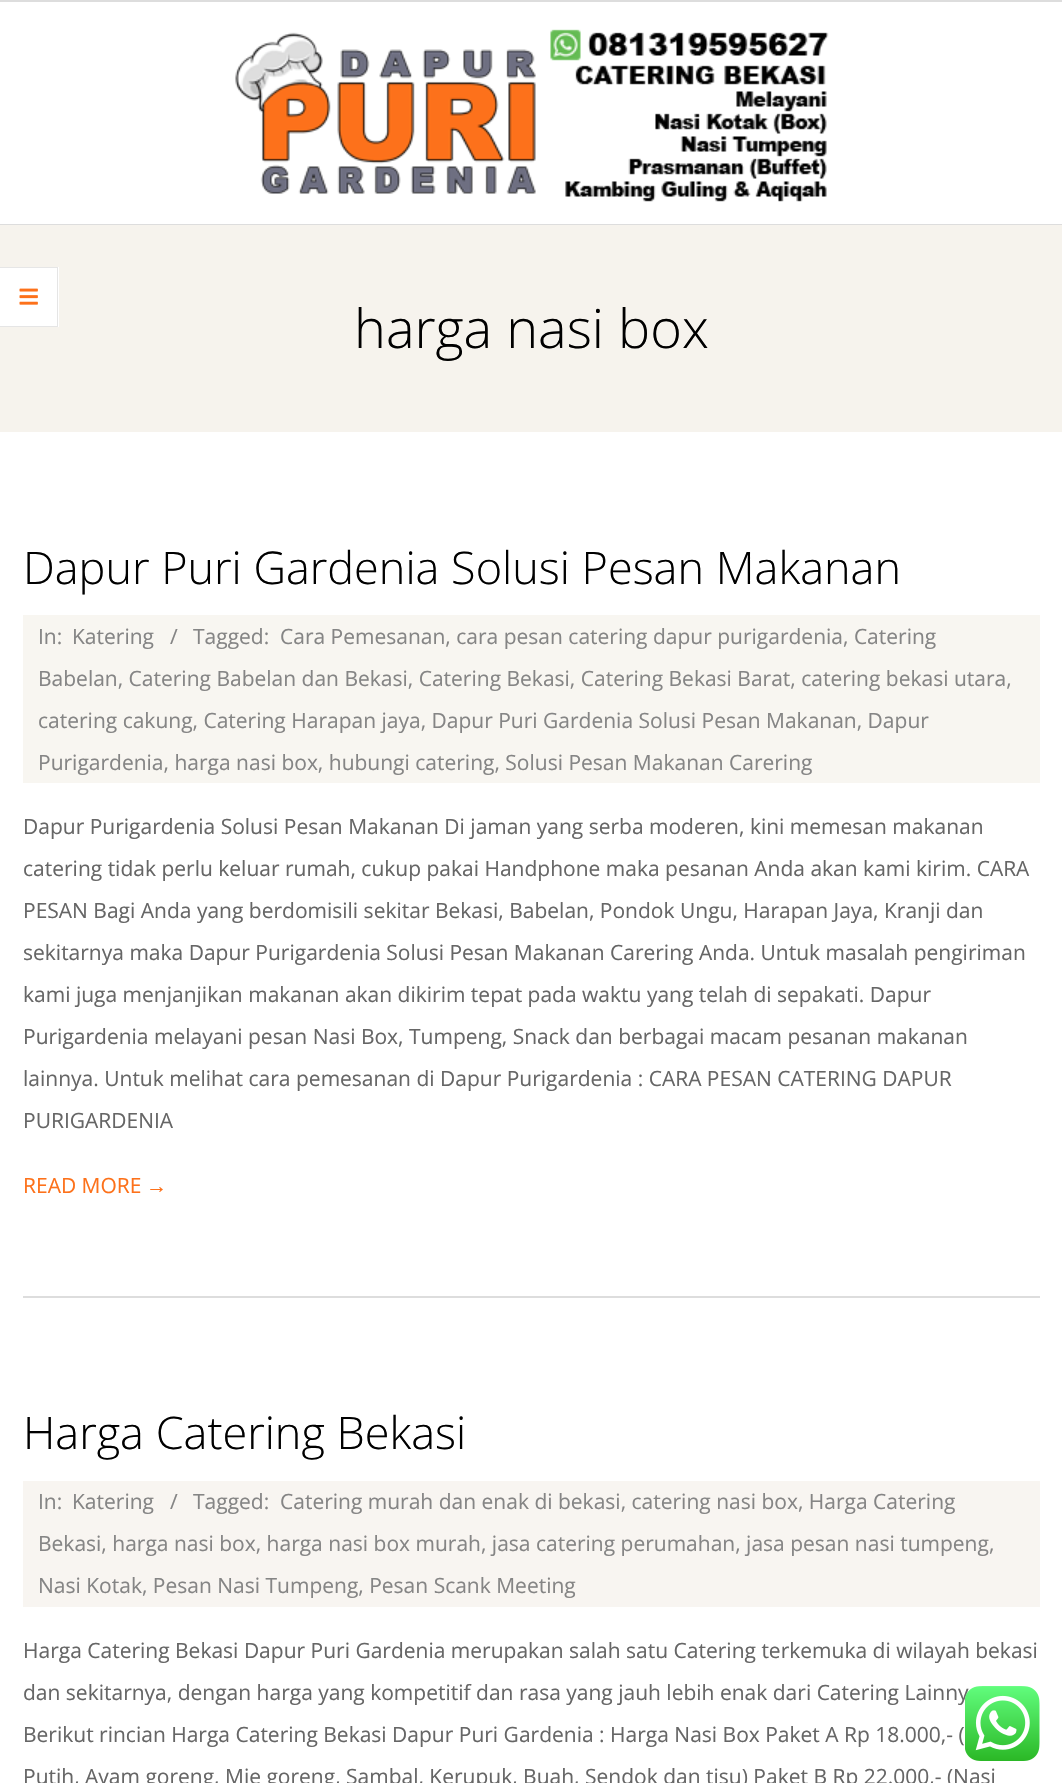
#include "include/core/SkBlurTypes.h"
#include "include/core/SkCanvas.h"
#include "include/core/SkData.h"
#include "include/core/SkFont.h"
#include "include/core/SkFontMgr.h"
#include "include/core/SkImage.h"
#include "include/core/SkMaskFilter.h"
#include "include/core/SkPaint.h"
#include "include/core/SkPathBuilder.h"
#include "include/core/SkTextBlob.h"
#include "include/effects/SkDashPathEffect.h"
#include "include/effects/SkGradientShader.h"
#include "include/utils/SkParsePath.h"

extern sk_sp<SkFontMgr> fontMgr;

void draw(SkCanvas* canvas) {
  SkPaint p;
  p.setAntiAlias(true);
  canvas->clear(SK_ColorWHITE);
  p.setColor(SkColorSetRGB(221, 221, 221));
  canvas->drawRect(SkRect::MakeLTRB(0, 0, 1062, 2), p);
  canvas->drawRect(SkRect::MakeLTRB(0, 224, 1062, 225), p);
  canvas->drawImageRect(SkImages::DeferredFromEncodedData(SkData::MakeFromFileName("images/1.png")), SkRect::MakeLTRB(235, 29, 829, 202), SkSamplingOptions());
  p.setColor(SkColorSetRGB(246, 243, 237));
  canvas->drawRect(SkRect::MakeLTRB(0, 225, 1062, 432), p);
  p.setColor(SK_ColorWHITE);
  canvas->drawRect(SkRect::MakeLTRB(0, 267, 59, 327), p);
  p.setColor(SkColorSetRGB(230, 230, 230));
  canvas->drawPath(SkPathBuilder().moveTo(0, 267).lineTo(58, 267).lineTo(57, 268).lineTo(0, 268).close().detach(), p);
  p.setColor(SkColorSetARGB(26, 0, 0, 0));
  canvas->drawPath(SkPathBuilder().moveTo(58, 267).lineTo(58, 327).lineTo(57, 326).lineTo(57, 268).close().detach(), p);
  canvas->drawPath(SkPathBuilder().moveTo(58, 327).lineTo(0, 327).lineTo(0, 326).lineTo(57, 326).close().detach(), p);
  canvas->drawImageRect(SkImages::DeferredFromEncodedData(SkData::MakeFromFileName("images/2.png")), SkRect::MakeLTRB(19, 288, 38, 305), SkSamplingOptions());
  p.setColor(SkColorSetRGB(221, 221, 221));
  canvas->drawRect(SkRect::MakeLTRB(23, 1296, 1040, 1298), p);
  p.setColor(SkColorSetRGB(248, 246, 241));
  canvas->drawRect(SkRect::MakeLTRB(23, 615, 1040, 783), p);
  p.setColor(SkColorSetRGB(248, 245, 241));
  canvas->drawRect(SkRect::MakeLTRB(23, 1481, 1040, 1607), p);
  SkFont font1(fontMgr->matchFamilyStyle("Open Sans", SkFontStyle(300, SkFontStyle::kNormal_Width, SkFontStyle::kUpright_Slant)), 54);
  font1.setSubpixel(true);
  p.setColor(SK_ColorBLACK);
  canvas->drawString("harga nasi box", 354, 348, font1, p);
  SkFont font2(fontMgr->matchFamilyStyle("Open Sans", SkFontStyle(300, SkFontStyle::kNormal_Width, SkFontStyle::kUpright_Slant)), 45);
  font2.setSubpixel(true);
  canvas->drawString("Dapur Puri Gardenia Solusi Pesan Makanan", 23, 584, font2, p);
  SkFont font3(fontMgr->matchFamilyStyle("Open Sans", SkFontStyle::Normal()), 21);
  font3.setSubpixel(true);
  p.setColor(SkColorSetRGB(133, 133, 133));
  canvas->drawString("In:", 38, 644, font3, p);
  canvas->drawString("Katering", 72, 644, font3, p);
  canvas->drawString("/", 170, 644, font3, p);
  canvas->drawString("Tagged:", 193, 644, font3, p);
  canvas->drawString("Cara Pemesanan, cara pesan catering dapur purigardenia, Catering", 280, 644, font3, p);
  canvas->drawString("Babelan, Catering Babelan dan Bekasi, Catering Bekasi, Catering Bekasi Barat, catering bekasi utara,", 38, 686, font3, p);
  canvas->drawString("catering cakung, Catering Harapan jaya, Dapur Puri Gardenia Solusi Pesan Makanan, Dapur", 38, 728, font3, p);
  canvas->drawString("Purigardenia, harga nasi box, hubungi catering, Solusi Pesan Makanan Carering", 38, 770, font3, p);
  p.setColor(SkColorSetRGB(102, 102, 102));
  canvas->drawString("Dapur Purigardenia Solusi Pesan Makanan Di jaman yang serba moderen, kini memesan makanan", 23, 834, font3, p);
  canvas->drawString("catering tidak perlu keluar rumah, cukup pakai Handphone maka pesanan Anda akan kami kirim. CARA", 23, 876, font3, p);
  canvas->drawString("PESAN Bagi Anda yang berdomisili sekitar Bekasi, Babelan, Pondok Ungu, Harapan Jaya, Kranji dan", 23, 918, font3, p);
  canvas->drawString("sekitarnya maka Dapur Purigardenia Solusi Pesan Makanan Carering Anda. Untuk masalah pengiriman", 23, 960, font3, p);
  canvas->drawString("kami juga menjanjikan makanan akan dikirim tepat pada waktu yang telah di sepakati. Dapur", 23, 1002, font3, p);
  canvas->drawString("Purigardenia melayani pesan Nasi Box, Tumpeng, Snack dan berbagai macam pesanan makanan", 23, 1044, font3, p);
  canvas->drawString("lainnya. Untuk melihat cara pemesanan di Dapur Purigardenia : CARA PESAN CATERING DAPUR", 23, 1086, font3, p);
  canvas->drawString("PURIGARDENIA", 23, 1128, font3, p);
  p.setColor(SkColorSetRGB(253, 113, 26));
  canvas->drawString("READ MORE", 23, 1193, font3, p);
  SkFont font4(fontMgr->matchFamilyStyle("Liberation Sans", SkFontStyle::Normal()), 21);
  font4.setSubpixel(true);
  canvas->drawString("→", 146, 1193, font4, p);
  p.setColor(SK_ColorBLACK);
  canvas->drawString("Harga Catering Bekasi", 23, 1449, font2, p);
  p.setColor(SkColorSetRGB(133, 133, 133));
  canvas->drawString("In:", 38, 1509, font3, p);
  canvas->drawString("Katering", 72, 1509, font3, p);
  canvas->drawString("/", 170, 1509, font3, p);
  canvas->drawString("Tagged:", 193, 1509, font3, p);
  canvas->drawString("Catering murah dan enak di bekasi, catering nasi box, Harga Catering", 280, 1509, font3, p);
  canvas->drawString("Bekasi, harga nasi box, harga nasi box murah, jasa catering perumahan, jasa pesan nasi tumpeng,", 38, 1551, font3, p);
  canvas->drawString("Nasi Kotak, Pesan Nasi Tumpeng, Pesan Scank Meeting", 38, 1593, font3, p);
  p.setColor(SkColorSetRGB(102, 102, 102));
  canvas->drawString("Harga Catering Bekasi Dapur Puri Gardenia merupakan salah satu Catering terkemuka di wilayah bekasi", 23, 1658, font3, p);
  canvas->drawString("dan sekitarnya, dengan harga yang kompetitif dan rasa yang jauh lebih enak dari Catering Lainny", 23, 1700, font3, p);
  canvas->drawString("Berikut rincian Harga Catering Bekasi Dapur Puri Gardenia : Harga Nasi Box Paket A Rp 18.000,- (", 23, 1742, font3, p);
  canvas->drawString("Putih, Ayam goreng, Mie goreng, Sambal, Kerupuk, Buah, Sendok dan tisu) Paket B Rp 22.000,- (Nasi", 23, 1784, font3, p);
  canvas->drawImageRect(SkImages::DeferredFromEncodedData(SkData::MakeFromFileName("images/3.png")), SkRect::MakeLTRB(965, 1686, 1040, 1761), SkSamplingOptions());
}
